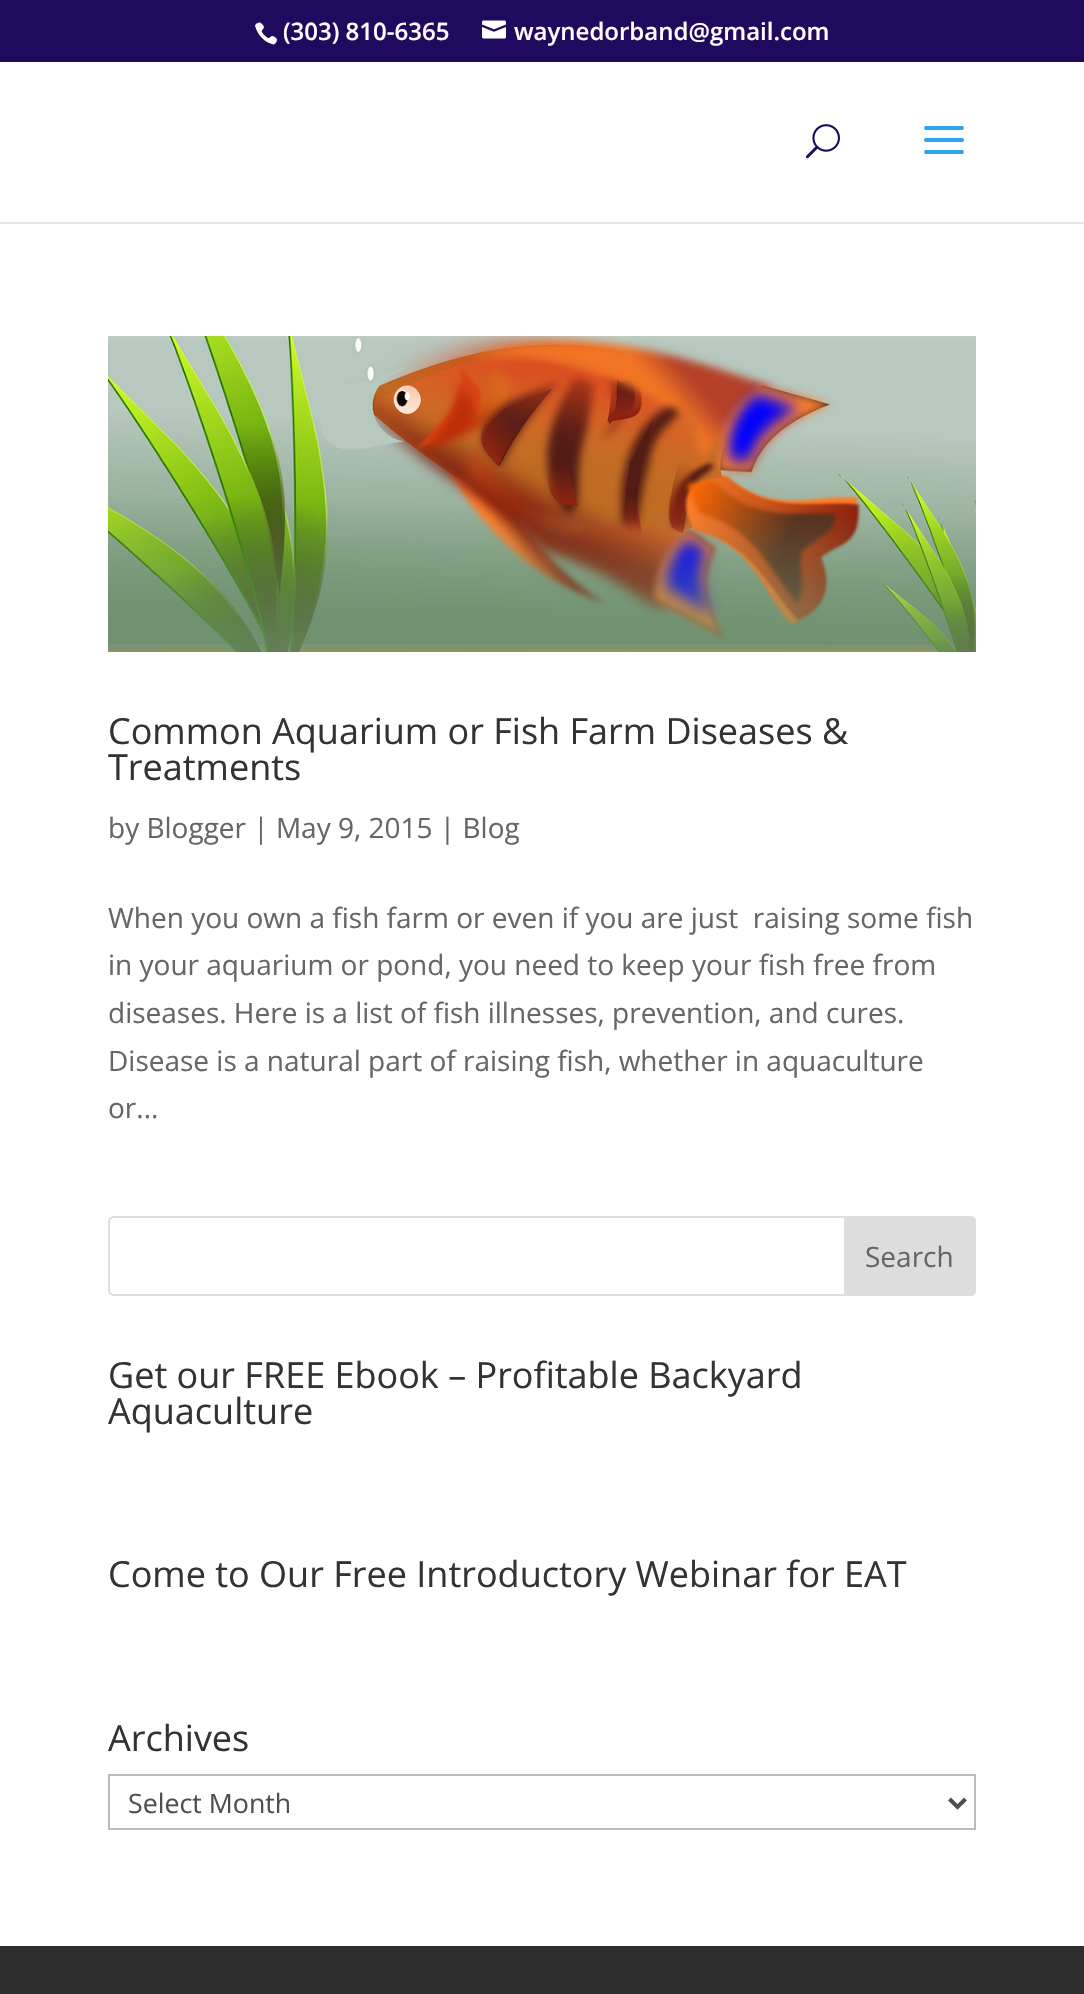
#include "include/core/SkBlurTypes.h"
#include "include/core/SkCanvas.h"
#include "include/core/SkData.h"
#include "include/core/SkFont.h"
#include "include/core/SkFontMgr.h"
#include "include/core/SkImage.h"
#include "include/core/SkMaskFilter.h"
#include "include/core/SkPaint.h"
#include "include/core/SkPathBuilder.h"
#include "include/core/SkTextBlob.h"
#include "include/effects/SkDashPathEffect.h"
#include "include/effects/SkGradientShader.h"
#include "include/utils/SkParsePath.h"

extern sk_sp<SkFontMgr> fontMgr;

void draw(SkCanvas* canvas) {
  SkPaint p;
  p.setAntiAlias(true);
  canvas->clear(SK_ColorWHITE);
  p.setColor(SkColorSetRGB(31, 10, 94));
  canvas->drawRect(SkRect::MakeLTRB(0, 0, 1084, 62), p);
  canvas->drawImageRect(SkImages::DeferredFromEncodedData(SkData::MakeFromFileName("images/1.png")), SkRect::MakeLTRB(255, 22, 277, 45), SkSamplingOptions());
  canvas->drawImageRect(SkImages::DeferredFromEncodedData(SkData::MakeFromFileName("images/2.png")), SkRect::MakeLTRB(482, 20, 506, 39), SkSamplingOptions());
  p.setColor(SkColorSetRGB(230, 230, 230));
  canvas->drawRect(SkRect::MakeLTRB(0, 222, 1084, 224), p);
  canvas->drawImageRect(SkImages::DeferredFromEncodedData(SkData::MakeFromFileName("images/3.png")), SkRect::MakeLTRB(805, 124, 840, 159), SkSamplingOptions());
  canvas->drawImageRect(SkImages::DeferredFromEncodedData(SkData::MakeFromFileName("images/4.png")), SkRect::MakeLTRB(924, 126, 964, 154), SkSamplingOptions());
  canvas->drawImageRect(SkImages::DeferredFromEncodedData(SkData::MakeFromFileName("images/5.png")), SkRect::MakeLTRB(108, 336, 976, 652), SkSamplingOptions());
  p.setStyle(SkPaint::kStroke_Style);
  p.setStrokeWidth(2);
  p.setColor(SkColorSetRGB(221, 221, 221));
  canvas->drawRoundRect(SkRect::MakeLTRB(109, 1217, 975, 1295), 5, 5, p);
  p.setStyle(SkPaint::kFill_Style);
  canvas->drawPath(SkPathBuilder().moveTo(845, 1217).lineTo(970, 1217).cubicTo(973, 1217, 975, 1219, 975, 1222).lineTo(975, 1290).cubicTo(975, 1293, 973, 1295, 970, 1295).lineTo(845, 1295).close().detach(), p);
  p.setStyle(SkPaint::kStroke_Style);
  canvas->drawPath(SkPathBuilder().moveTo(845, 1217).lineTo(970, 1217).cubicTo(973, 1217, 975, 1219, 975, 1222).lineTo(975, 1290).cubicTo(975, 1293, 973, 1295, 970, 1295).lineTo(845, 1295).close().detach(), p);
  p.setColor(SkColorSetRGB(187, 187, 187));
  canvas->drawRect(SkRect::MakeLTRB(109, 1775, 975, 1829), p);
  p.setStrokeWidth(4);
  p.setColor(SkColorSetRGB(78, 78, 78));
  canvas->drawPath(SkPathBuilder().moveTo(949.5f, 1799).lineTo(957.5f, 1807).lineTo(965.5f, 1799).detach(), p);
  p.setStyle(SkPaint::kFill_Style);
  p.setColor(SkColorSetRGB(45, 45, 45));
  canvas->drawRect(SkRect::MakeLTRB(0, 1946, 1084, 1994), p);
  SkFont font1(fontMgr->matchFamilyStyle("Open Sans", SkFontStyle(600, SkFontStyle::kNormal_Width, SkFontStyle::kUpright_Slant)), 24);
  font1.setSubpixel(true);
  p.setColor(SK_ColorWHITE);
  canvas->drawString("(303) 810-6365", 283, 40, font1, p);
  canvas->drawString("waynedorband@gmail.com", 514, 40, font1, p);
  SkFont font2(fontMgr->matchFamilyStyle("Open Sans", SkFontStyle::Normal()), 36);
  font2.setSubpixel(true);
  p.setColor(SkColorSetRGB(51, 51, 51));
  canvas->drawString("Common Aquarium or Fish Farm Diseases &", 108, 744, font2, p);
  canvas->drawString("Treatments", 108, 780, font2, p);
  SkFont font3(fontMgr->matchFamilyStyle("Open Sans", SkFontStyle::Normal()), 28);
  font3.setSubpixel(true);
  p.setColor(SkColorSetRGB(102, 102, 102));
  canvas->drawString("by Blogger | May 9, 2015 | Blog", 108, 838, font3, p);
  canvas->drawString("When you own a fish farm or even if you are just  raising some fish", 108, 928, font3, p);
  canvas->drawString("in your aquarium or pond, you need to keep your fish free from", 108, 975, font3, p);
  canvas->drawString("diseases. Here is a list of fish illnesses, prevention, and cures.", 108, 1023, font3, p);
  canvas->drawString("Disease is a natural part of raising fish, whether in aquaculture", 108, 1071, font3, p);
  canvas->drawString("or...", 108, 1118, font3, p);
  canvas->drawString("Search", 865, 1267, font3, p);
  p.setColor(SkColorSetRGB(51, 51, 51));
  canvas->drawString("Get our FREE Ebook – Profitable Backyard", 108, 1388, font2, p);
  canvas->drawString("Aquaculture", 108, 1424, font2, p);
  canvas->drawString("Come to Our Free Introductory Webinar for EAT", 108, 1587, font2, p);
  canvas->drawString("Archives", 108, 1751, font2, p);
  SkFont font4(fontMgr->matchFamilyStyle("Open Sans", SkFontStyle::Normal()), 26.75f);
  font4.setSubpixel(true);
  p.setColor(SkColorSetRGB(78, 78, 78));
  canvas->drawString("Select Month", 128, 1813, font4, p);
}
